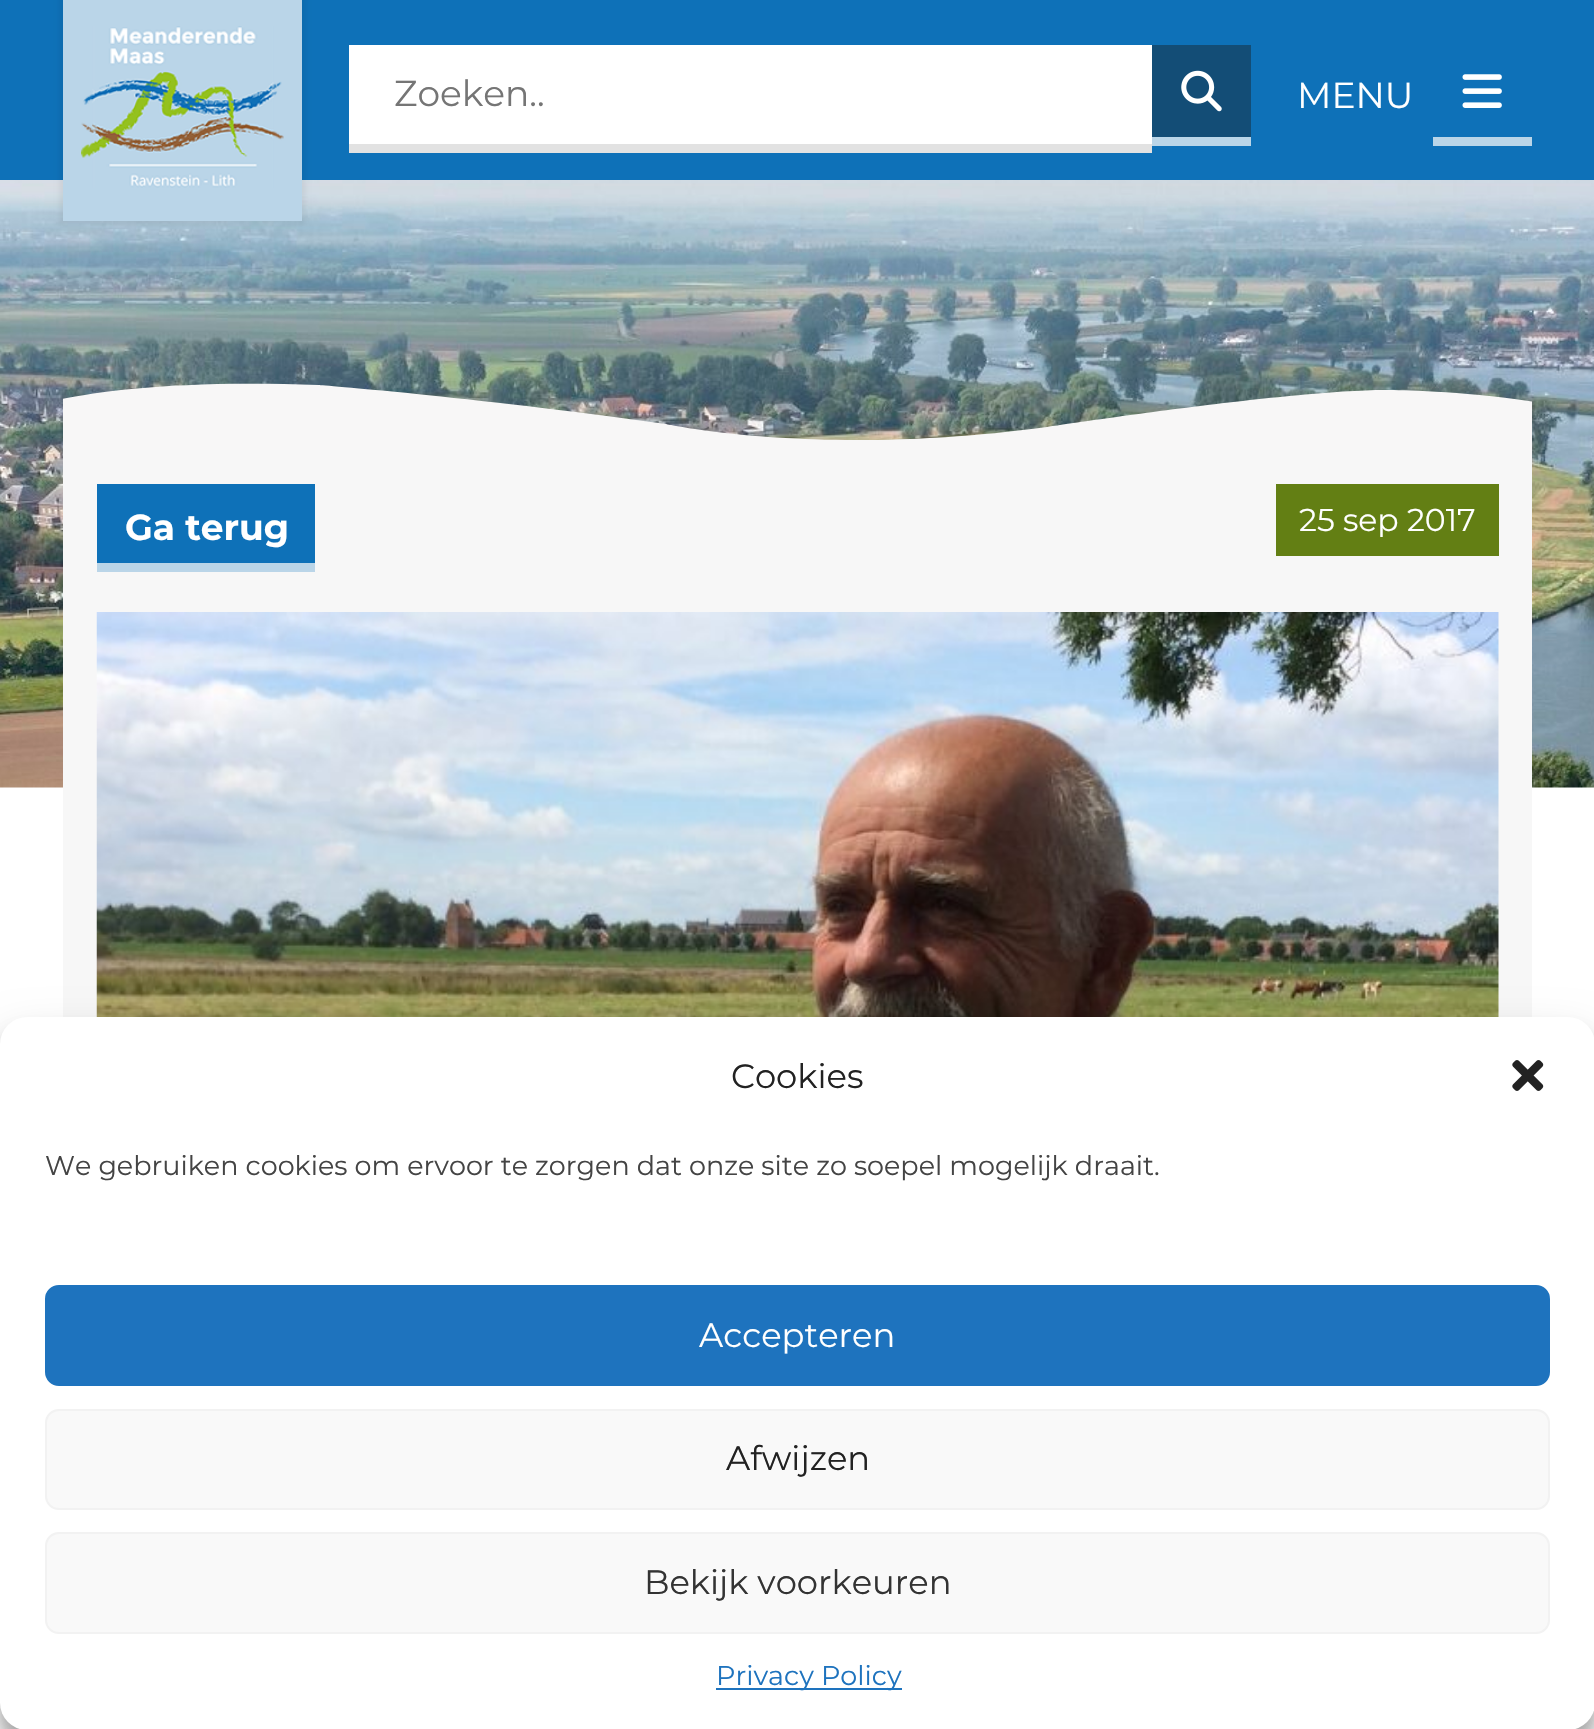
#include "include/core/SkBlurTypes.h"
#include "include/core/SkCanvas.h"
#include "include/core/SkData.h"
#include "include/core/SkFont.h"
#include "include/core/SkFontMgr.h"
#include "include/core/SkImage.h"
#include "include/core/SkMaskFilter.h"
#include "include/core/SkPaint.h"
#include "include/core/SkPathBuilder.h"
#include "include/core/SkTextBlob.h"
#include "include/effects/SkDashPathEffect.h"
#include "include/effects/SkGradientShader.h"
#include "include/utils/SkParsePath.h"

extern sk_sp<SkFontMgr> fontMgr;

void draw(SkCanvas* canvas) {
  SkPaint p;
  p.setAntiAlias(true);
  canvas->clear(SK_ColorWHITE);
  p.setColor(SkColorSetRGB(14, 113, 184));
  canvas->drawRect(SkRect::MakeLTRB(0, 0, 1594, 180), p);
  canvas->drawImageRect(SkImages::DeferredFromEncodedData(SkData::MakeFromFileName("images/4.png")), SkRect::MakeLTRB(0, 180, 1594, 788), SkSamplingOptions());
  p.setColor(SkColorSetARGB(13, 0, 0, 0));
  p.setMaskFilter(SkMaskFilter::MakeBlur(kNormal_SkBlurStyle, 2));
  canvas->drawRect(SkRect::MakeLTRB(59, -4, 306, 225), p);
  p.setMaskFilter(nullptr);
  p.setColor(SkColorSetRGB(186, 213, 232));
  canvas->drawRect(SkRect::MakeLTRB(63, 0, 302, 221), p);
  canvas->drawImageRect(SkImages::DeferredFromEncodedData(SkData::MakeFromFileName("images/1.png")), SkRect::MakeLTRB(81, 26, 284, 188), SkSamplingOptions());
  p.setColor(SK_ColorWHITE);
  canvas->drawRect(SkRect::MakeLTRB(349, 45, 1152, 144), p);
  p.setColor(SkColorSetRGB(226, 226, 226));
  canvas->drawRect(SkRect::MakeLTRB(349, 144, 1152, 153), p);
  p.setColor(SkColorSetRGB(19, 77, 118));
  canvas->drawRect(SkRect::MakeLTRB(1152, 45, 1251, 137), p);
  p.setColor(SkColorSetRGB(186, 213, 232));
  canvas->drawRect(SkRect::MakeLTRB(1152, 137, 1251, 146), p);
  canvas->drawImageRect(SkImages::DeferredFromEncodedData(SkData::MakeFromFileName("images/2.png")), SkRect::MakeLTRB(1181, 70, 1222, 112), SkSamplingOptions());
  canvas->drawRect(SkRect::MakeLTRB(1433, 137, 1532, 146), p);
  canvas->drawImageRect(SkImages::DeferredFromEncodedData(SkData::MakeFromFileName("images/3.png")), SkRect::MakeLTRB(1462, 74, 1502, 108), SkSamplingOptions());
  p.setColor(SkColorSetRGB(247, 247, 247));
  canvas->drawRect(SkRect::MakeLTRB(63, 450, 1532, 1017), p);
  canvas->save();
  canvas->clipRect(SkRect::MakeLTRB(63, 383, 1532, 450));
  p.setColor(SkColorSetRGB(248, 247, 247));
  canvas->drawPath(SkPathBuilder().moveTo(26, 518).lineTo(26, 409).cubicTo(26, 409, 100, 377, 319, 385).cubicTo(319, 385, 464, 396, 666, 424).cubicTo(666, 424, 818, 458, 1047, 427).cubicTo(1047, 427, 1289, 390, 1385, 390).cubicTo(1385, 390, 1469, 389, 1572, 408).cubicTo(1572, 408, 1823, 448, 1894, 429).lineTo(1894, 508).close().detach(), p);
  canvas->restore();
  p.setColor(SkColorSetRGB(14, 113, 184));
  canvas->drawRect(SkRect::MakeLTRB(97, 484, 315, 563), p);
  p.setColor(SkColorSetRGB(186, 213, 232));
  canvas->drawRect(SkRect::MakeLTRB(97, 563, 315, 572), p);
  p.setColor(SkColorSetRGB(99, 127, 20));
  canvas->drawRect(SkRect::MakeLTRB(1276, 484, 1499, 556), p);
  canvas->drawImageRect(SkImages::DeferredFromEncodedData(SkData::MakeFromFileName("images/5.png")), SkRect::MakeLTRB(96, 612, 1499, 1017), SkSamplingOptions());
  p.setColor(SkColorSetARGB(59, 0, 0, 0));
  p.setMaskFilter(SkMaskFilter::MakeBlur(kNormal_SkBlurStyle, 7));
  canvas->drawRoundRect(SkRect::MakeLTRB(0, 1031, 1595, 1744), 27, 27, p);
  p.setMaskFilter(nullptr);
  p.setColor(SkColorSetARGB(48, 0, 0, 0));
  p.setMaskFilter(SkMaskFilter::MakeBlur(kNormal_SkBlurStyle, 22.5f));
  canvas->drawRoundRect(SkRect::MakeLTRB(0, 1040, 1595, 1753), 27, 27, p);
  p.setMaskFilter(nullptr);
  p.setColor(SK_ColorWHITE);
  canvas->drawRoundRect(SkRect::MakeLTRB(0, 1017, 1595, 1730), 27, 27, p);
  canvas->drawImageRect(SkImages::DeferredFromEncodedData(SkData::MakeFromFileName("images/6.png")), SkRect::MakeLTRB(1512, 1060, 1544, 1091), SkSamplingOptions());
  p.setColor(SkColorSetRGB(30, 115, 190));
  canvas->drawRoundRect(SkRect::MakeLTRB(46, 1286, 1549, 1385), 13, 13, p);
  p.setStyle(SkPaint::kStroke_Style);
  p.setStrokeWidth(2);
  canvas->drawRoundRect(SkRect::MakeLTRB(46, 1286, 1549, 1385), 13, 13, p);
  p.setStyle(SkPaint::kFill_Style);
  p.setColor(SkColorSetRGB(249, 249, 249));
  canvas->drawRoundRect(SkRect::MakeLTRB(46, 1410, 1549, 1509), 13, 13, p);
  p.setStyle(SkPaint::kStroke_Style);
  p.setColor(SkColorSetRGB(242, 242, 242));
  canvas->drawRoundRect(SkRect::MakeLTRB(46, 1410, 1549, 1509), 13, 13, p);
  p.setStyle(SkPaint::kFill_Style);
  p.setColor(SkColorSetRGB(249, 249, 249));
  canvas->drawRoundRect(SkRect::MakeLTRB(46, 1533, 1549, 1633), 13, 13, p);
  p.setStyle(SkPaint::kStroke_Style);
  p.setColor(SkColorSetRGB(242, 242, 242));
  canvas->drawRoundRect(SkRect::MakeLTRB(46, 1533, 1549, 1633), 13, 13, p);
  p.setStyle(SkPaint::kFill_Style);
  p.setColor(SkColorSetRGB(30, 115, 190));
  canvas->drawRect(SkRect::MakeLTRB(716, 1688, 902, 1690), p);
  SkFont font1(fontMgr->matchFamilyStyle("Montserrat", SkFontStyle::Normal()), 36);
  font1.setSubpixel(true);
  p.setColor(SkColorSetRGB(117, 117, 117));
  canvas->drawString("Zoeken..", 394, 106, font1, p);
  p.setColor(SK_ColorWHITE);
  canvas->drawString("MENU", 1297, 108, font1, p);
  SkFont font2(fontMgr->matchFamilyStyle("Montserrat", SkFontStyle::Bold()), 36);
  font2.setSubpixel(true);
  canvas->drawString("Ga terug", 125, 540, font2, p);
  SkFont font3(fontMgr->matchFamilyStyle("Montserrat", SkFontStyle::Normal()), 31.5f);
  font3.setSubpixel(true);
  canvas->drawString("25 sep 2017", 1299, 531, font3, p);
  SkFont font4(fontMgr->matchFamilyStyle("Montserrat", SkFontStyle::Normal()), 33.75f);
  font4.setSubpixel(true);
  p.setColor(SkColorSetRGB(34, 34, 34));
  canvas->drawString("Cookies", 731, 1088, font4, p);
  SkFont font5(fontMgr->matchFamilyStyle("Montserrat", SkFontStyle::Normal()), 27);
  font5.setSubpixel(true);
  p.setColor(SkColorSetRGB(68, 68, 68));
  canvas->drawString("We gebruiken cookies om ervoor te zorgen dat onze site zo soepel mogelijk draait.", 45, 1175, font5, p);
  p.setColor(SK_ColorWHITE);
  canvas->drawString("Accepteren", 699, 1347, font4, p);
  p.setColor(SkColorSetRGB(34, 34, 34));
  canvas->drawString("Afwijzen", 726, 1470, font4, p);
  p.setColor(SkColorSetRGB(51, 51, 51));
  canvas->drawString("Bekijk voorkeuren", 644, 1594, font4, p);
  p.setColor(SkColorSetRGB(30, 115, 190));
  canvas->drawString("Privacy Policy", 716, 1685, font5, p);
}
